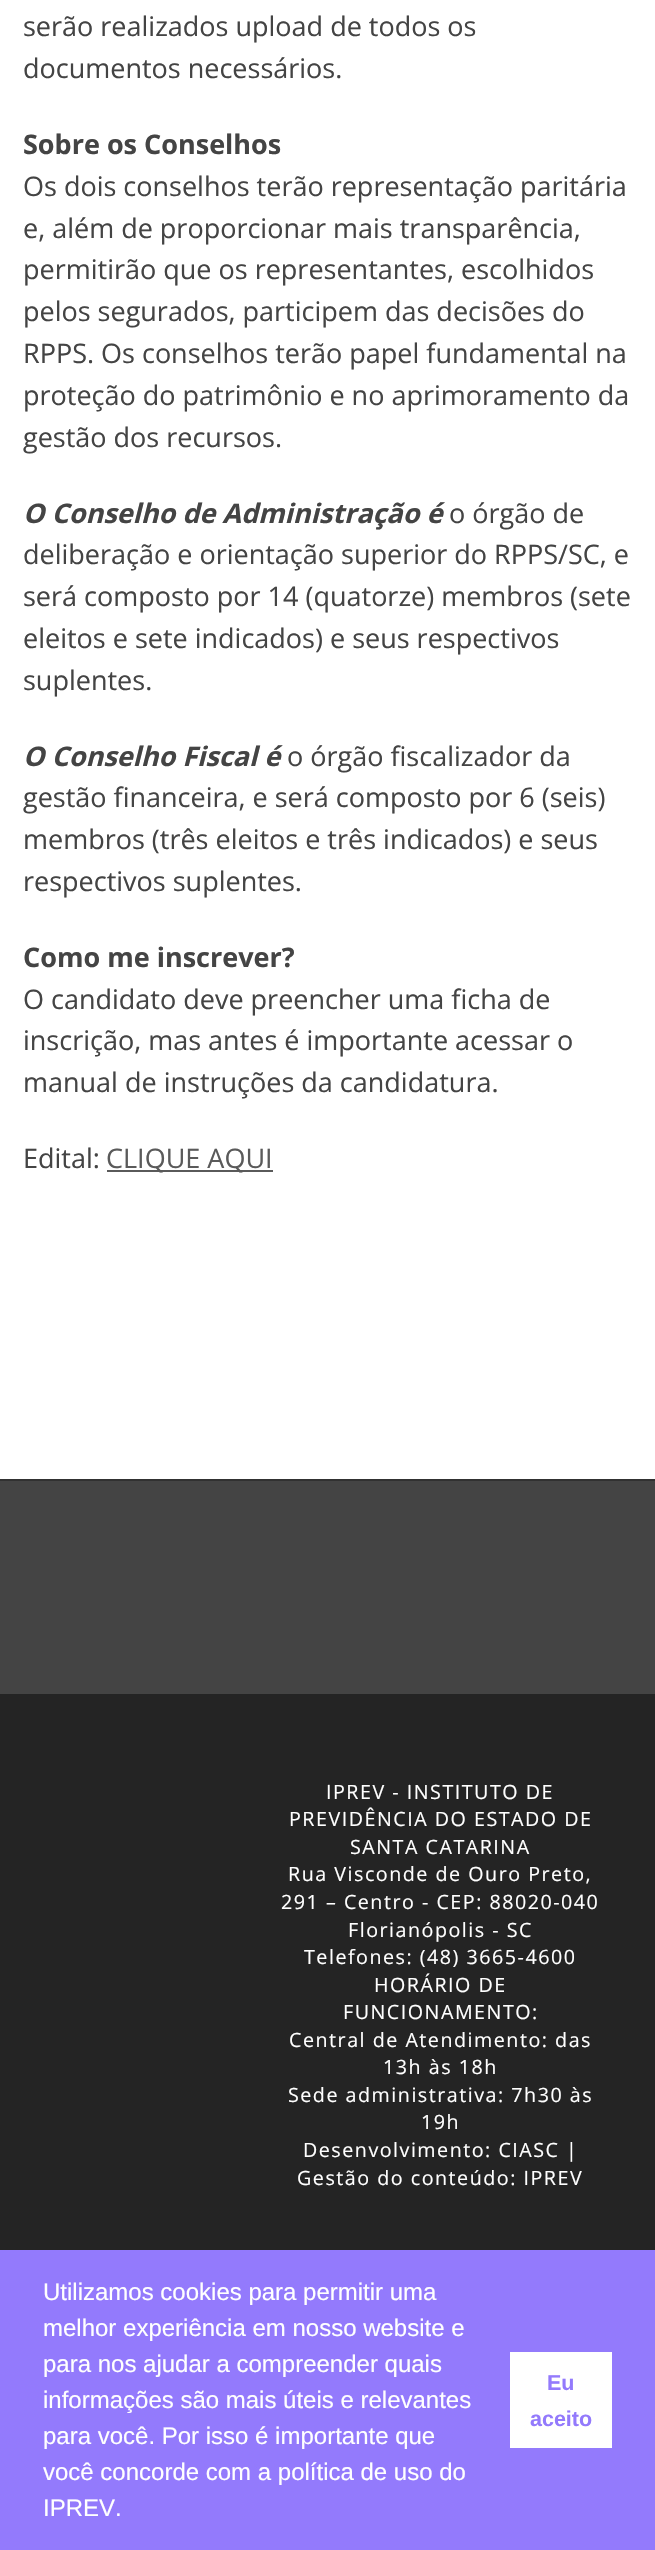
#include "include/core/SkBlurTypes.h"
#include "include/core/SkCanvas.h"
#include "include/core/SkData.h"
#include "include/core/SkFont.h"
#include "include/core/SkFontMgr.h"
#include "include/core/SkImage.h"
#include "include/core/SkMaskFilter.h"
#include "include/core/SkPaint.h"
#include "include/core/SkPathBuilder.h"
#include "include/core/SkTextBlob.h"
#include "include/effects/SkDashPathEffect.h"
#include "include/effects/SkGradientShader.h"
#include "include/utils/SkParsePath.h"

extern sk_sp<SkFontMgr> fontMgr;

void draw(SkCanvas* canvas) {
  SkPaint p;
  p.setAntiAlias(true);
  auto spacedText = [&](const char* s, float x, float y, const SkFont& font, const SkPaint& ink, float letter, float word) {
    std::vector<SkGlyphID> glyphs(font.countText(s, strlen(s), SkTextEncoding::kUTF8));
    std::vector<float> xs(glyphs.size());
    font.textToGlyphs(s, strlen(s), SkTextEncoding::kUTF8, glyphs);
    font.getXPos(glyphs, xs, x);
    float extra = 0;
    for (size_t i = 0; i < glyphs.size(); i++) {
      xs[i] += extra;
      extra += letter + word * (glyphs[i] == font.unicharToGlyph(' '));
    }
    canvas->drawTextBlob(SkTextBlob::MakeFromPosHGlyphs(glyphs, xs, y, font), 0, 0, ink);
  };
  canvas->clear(SK_ColorWHITE);
  p.setColor(SkColorSetRGB(90, 90, 90));
  canvas->drawRect(SkRect::MakeLTRB(107, 1170, 273, 1172), p);
  p.setColor(SkColorSetRGB(49, 49, 49));
  canvas->drawRect(SkRect::MakeLTRB(0, 1479, 655, 1481), p);
  p.setColor(SkColorSetRGB(68, 68, 68));
  canvas->drawRect(SkRect::MakeLTRB(0, 1481, 655, 1694), p);
  p.setColor(SkColorSetRGB(36, 36, 36));
  canvas->drawRect(SkRect::MakeLTRB(0, 1694, 655, 2250), p);
  p.setColor(SkColorSetRGB(147, 122, 252));
  canvas->drawRect(SkRect::MakeLTRB(0, 2250, 655, 2550), p);
  p.setColor(SK_ColorWHITE);
  canvas->drawRect(SkRect::MakeLTRB(510, 2352, 612, 2448), p);
  SkFont font1(fontMgr->matchFamilyStyle("Open Sans", SkFontStyle::Normal()), 27);
  font1.setSubpixel(true);
  p.setColor(SkColorSetRGB(68, 68, 68));
  canvas->drawString("serão realizados upload de todos os", 23, 36, font1, p);
  canvas->drawString("documentos necessários.", 23, 78, font1, p);
  SkFont font2(fontMgr->matchFamilyStyle("Open Sans", SkFontStyle::Bold()), 27);
  font2.setSubpixel(true);
  canvas->drawString("Sobre os Conselhos", 23, 154, font2, p);
  canvas->drawString("Os dois conselhos terão representação paritária", 23, 196, font1, p);
  canvas->drawString("e, além de proporcionar mais transparência,", 23, 238, font1, p);
  canvas->drawString("permitirão que os representantes, escolhidos", 23, 279, font1, p);
  canvas->drawString("pelos segurados, participem das decisões do", 23, 321, font1, p);
  canvas->drawString("RPPS. Os conselhos terão papel fundamental na", 23, 363, font1, p);
  canvas->drawString("proteção do patrimônio e no aprimoramento da", 23, 405, font1, p);
  canvas->drawString("gestão dos recursos.", 23, 447, font1, p);
  SkFont font3(fontMgr->matchFamilyStyle("Open Sans", SkFontStyle::BoldItalic()), 27);
  font3.setSubpixel(true);
  canvas->drawString("O Conselho de Administração é", 23, 523, font3, p);
  canvas->drawString("o órgão de", 449, 523, font1, p);
  canvas->drawString("deliberação e orientação superior do RPPS/SC, e", 23, 564, font1, p);
  canvas->drawString("será composto por 14 (quatorze) membros (sete", 23, 606, font1, p);
  canvas->drawString("eleitos e sete indicados) e seus respectivos", 23, 648, font1, p);
  canvas->drawString("suplentes.", 23, 690, font1, p);
  canvas->drawString("O Conselho Fiscal é", 23, 766, font3, p);
  canvas->drawString("o órgão fiscalizador da", 287, 766, font1, p);
  canvas->drawString("gestão financeira, e será composto por 6 (seis)", 23, 807, font1, p);
  canvas->drawString("membros (três eleitos e três indicados) e seus", 23, 849, font1, p);
  canvas->drawString("respectivos suplentes.", 23, 891, font1, p);
  canvas->drawString("Como me inscrever?", 23, 967, font2, p);
  canvas->drawString("O candidato deve preencher uma ficha de", 23, 1009, font1, p);
  canvas->drawString("inscrição, mas antes é importante acessar o", 23, 1050, font1, p);
  canvas->drawString("manual de instruções da candidatura.", 23, 1092, font1, p);
  canvas->drawString("Edital:", 23, 1168, font1, p);
  p.setColor(SkColorSetRGB(90, 90, 90));
  canvas->drawString("CLIQUE AQUI", 106, 1168, font1, p);
  SkFont font4(fontMgr->matchFamilyStyle("Open Sans", SkFontStyle::Normal()), 19.7f);
  font4.setSubpixel(true);
  p.setColor(SK_ColorWHITE);
  spacedText("IPREV - INSTITUTO DE", 326, 1799, font4, p, 1.5f, 0);
  spacedText("PREVIDÊNCIA DO ESTADO DE", 289, 1826, font4, p, 1.5f, 0);
  spacedText("SANTA CATARINA", 350, 1854, font4, p, 1.5f, 0);
  spacedText("Rua Visconde de Ouro Preto,", 288, 1881, font4, p, 1.5f, 0);
  spacedText("291 – Centro - CEP: 88020-040", 281, 1909, font4, p, 1.5f, 0);
  spacedText("Florianópolis - SC", 348, 1937, font4, p, 1.5f, 0);
  spacedText("Telefones: (48) 3665-4600", 304, 1964, font4, p, 1.5f, 0);
  spacedText("HORÁRIO DE", 374, 1992, font4, p, 1.5f, 0);
  spacedText("FUNCIONAMENTO:", 343, 2019, font4, p, 1.5f, 0);
  spacedText("Central de Atendimento: das", 289, 2047, font4, p, 1.5f, 0);
  spacedText("13h às 18h", 383, 2074, font4, p, 1.5f, 0);
  spacedText("Sede administrativa: 7h30 às", 288, 2102, font4, p, 1.5f, 0);
  spacedText("19h", 421, 2129, font4, p, 1.5f, 0);
  spacedText("Desenvolvimento: CIASC |", 303, 2157, font4, p, 1.5f, 0);
  spacedText("Gestão do conteúdo: IPREV", 297, 2185, font4, p, 1.5f, 0);
  SkFont font5(fontMgr->matchFamilyStyle("Liberation Sans", SkFontStyle::Normal()), 24);
  font5.setSubpixel(true);
  canvas->drawString("Utilizamos cookies para permitir uma", 43, 2300, font5, p);
  canvas->drawString("melhor experiência em nosso website e", 43, 2336, font5, p);
  canvas->drawString("para nos ajudar a compreender quais", 43, 2372, font5, p);
  canvas->drawString("informações são mais úteis e relevantes", 43, 2408, font5, p);
  canvas->drawString("para você. Por isso é importante que", 43, 2444, font5, p);
  canvas->drawString("você concorde com a política de uso do", 43, 2480, font5, p);
  canvas->drawString("IPREV.", 43, 2516, font5, p);
  SkFont font6(fontMgr->matchFamilyStyle("Liberation Sans", SkFontStyle::Bold()), 21.5f);
  font6.setSubpixel(true);
  p.setColor(SkColorSetRGB(147, 122, 252));
  canvas->drawString("Eu", 547, 2390, font6, p);
  canvas->drawString("aceito", 530, 2426, font6, p);
}
